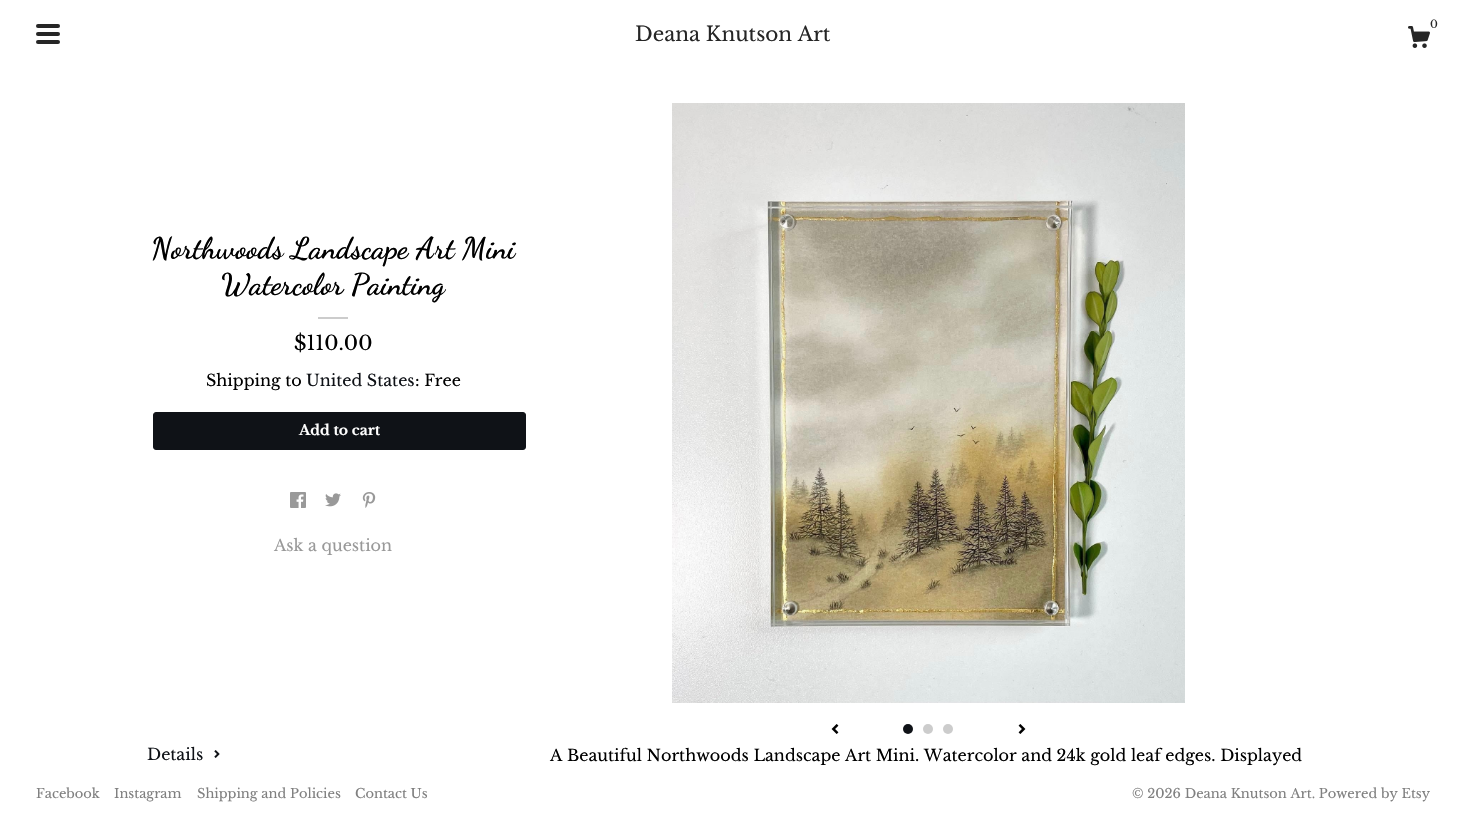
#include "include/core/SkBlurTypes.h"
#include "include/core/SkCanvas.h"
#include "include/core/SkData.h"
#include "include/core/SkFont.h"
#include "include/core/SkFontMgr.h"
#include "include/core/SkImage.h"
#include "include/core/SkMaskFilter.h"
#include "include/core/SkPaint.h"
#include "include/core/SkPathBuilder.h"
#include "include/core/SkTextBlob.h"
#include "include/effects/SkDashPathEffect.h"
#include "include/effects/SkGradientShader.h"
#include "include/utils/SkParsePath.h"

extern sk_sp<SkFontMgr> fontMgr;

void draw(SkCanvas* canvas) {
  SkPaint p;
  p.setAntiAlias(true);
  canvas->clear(SK_ColorWHITE);
  p.setColor(SkColorSetRGB(38, 38, 38));
  canvas->drawRoundRect(SkRect::MakeLTRB(36, 24, 60, 28), 2, 2, p);
  canvas->drawRoundRect(SkRect::MakeLTRB(36, 32, 60, 36), 2, 2, p);
  canvas->drawRoundRect(SkRect::MakeLTRB(36, 40, 60, 44), 2, 2, p);
  canvas->drawImageRect(SkImages::DeferredFromEncodedData(SkData::MakeFromFileName("images/1.png")), SkRect::MakeLTRB(1408, 26, 1430, 48), SkSamplingOptions());
  p.setColor(SkColorSetRGB(204, 204, 204));
  canvas->drawRect(SkRect::MakeLTRB(318, 317, 348, 319), p);
  p.setColor(SkColorSetRGB(15, 18, 23));
  canvas->drawRoundRect(SkRect::MakeLTRB(153.5f, 412.5f, 525.5f, 449.5f), 2.5f, 2.5f, p);
  p.setStyle(SkPaint::kStroke_Style);
  p.setStrokeWidth(1);
  canvas->drawRoundRect(SkRect::MakeLTRB(153.5f, 412.5f, 525.5f, 449.5f), 2.5f, 2.5f, p);
  canvas->drawImageRect(SkImages::DeferredFromEncodedData(SkData::MakeFromFileName("images/2.png")), SkRect::MakeLTRB(290, 492, 306, 508), SkSamplingOptions());
  canvas->drawImageRect(SkImages::DeferredFromEncodedData(SkData::MakeFromFileName("images/3.png")), SkRect::MakeLTRB(325, 493, 341, 507), SkSamplingOptions());
  canvas->drawImageRect(SkImages::DeferredFromEncodedData(SkData::MakeFromFileName("images/4.png")), SkRect::MakeLTRB(362, 492, 376, 508), SkSamplingOptions());
  canvas->drawImageRect(SkImages::DeferredFromEncodedData(SkData::MakeFromFileName("images/5.png")), SkRect::MakeLTRB(672, 103, 1185, 703), SkSamplingOptions());
  canvas->drawImageRect(SkImages::DeferredFromEncodedData(SkData::MakeFromFileName("images/6.png")), SkRect::MakeLTRB(831, 724, 839, 734), SkSamplingOptions());
  p.setStyle(SkPaint::kFill_Style);
  canvas->drawCircle(908, 729, 5, p);
  p.setColor(SkColorSetRGB(204, 204, 204));
  canvas->drawCircle(928, 729, 5, p);
  canvas->drawCircle(948, 729, 5, p);
  canvas->drawImageRect(SkImages::DeferredFromEncodedData(SkData::MakeFromFileName("images/7.png")), SkRect::MakeLTRB(1018, 724, 1026, 734), SkSamplingOptions());
  canvas->drawImageRect(SkImages::DeferredFromEncodedData(SkData::MakeFromFileName("images/8.png")), SkRect::MakeLTRB(214, 750, 220, 758), SkSamplingOptions());
  SkFont font1(fontMgr->matchFamilyStyle("Libre Baskerville", SkFontStyle::Normal()), 20);
  font1.setSubpixel(true);
  p.setColor(SkColorSetRGB(38, 38, 38));
  canvas->drawString("Deana Knutson Art", 635, 41, font1, p);
  SkFont font2(fontMgr->matchFamilyStyle("Libre Baskerville", SkFontStyle::Normal()), 11);
  font2.setSubpixel(true);
  canvas->drawString("0", 1430, 28, font2, p);
  SkFont font3(fontMgr->matchFamilyStyle("Dancing Script", SkFontStyle::Bold()), 30);
  font3.setSubpixel(true);
  p.setColor(SK_ColorBLACK);
  canvas->drawString("Northwoods Landscape Art Mini", 151, 258, font3, p);
  canvas->drawString("Watercolor Painting", 221, 294, font3, p);
  canvas->drawString("$110.00", 294, 350, font1, p);
  SkFont font4(fontMgr->matchFamilyStyle("Libre Baskerville", SkFontStyle::Normal()), 16);
  font4.setSubpixel(true);
  canvas->drawString("Shipping to", 206, 386, font4, p);
  p.setColor(SkColorSetRGB(15, 18, 23));
  canvas->drawString("United States", 306, 386, font4, p);
  p.setColor(SK_ColorBLACK);
  canvas->drawString(": Free", 415, 386, font4, p);
  SkFont font5(fontMgr->matchFamilyStyle("Libre Baskerville", SkFontStyle::Bold()), 14);
  font5.setSubpixel(true);
  p.setColor(SK_ColorWHITE);
  canvas->drawString("Add to cart", 299, 435, font5, p);
  p.setColor(SkColorSetRGB(153, 153, 153));
  canvas->drawString("Ask a question", 274, 551, font4, p);
  p.setColor(SkColorSetRGB(15, 18, 23));
  canvas->drawString("Details", 147, 760, font4, p);
  p.setColor(SK_ColorBLACK);
  canvas->drawString("A Beautiful Northwoods Landscape Art Mini. Watercolor and 24k gold leaf edges. Displayed", 550, 761, font4, p);
  SkFont font6(fontMgr->matchFamilyStyle("Libre Baskerville", SkFontStyle::Normal()), 13);
  font6.setSubpixel(true);
  p.setColor(SkColorSetRGB(128, 128, 128));
  canvas->drawString("Facebook", 36, 798, font6, p);
  canvas->drawString("Instagram", 114, 798, font6, p);
  canvas->drawString("Shipping and Policies", 197, 798, font6, p);
  canvas->drawString("Contact Us", 355, 798, font6, p);
  canvas->drawString("© 2026 Deana Knutson Art. Powered by Etsy", 1132, 798, font6, p);
}
